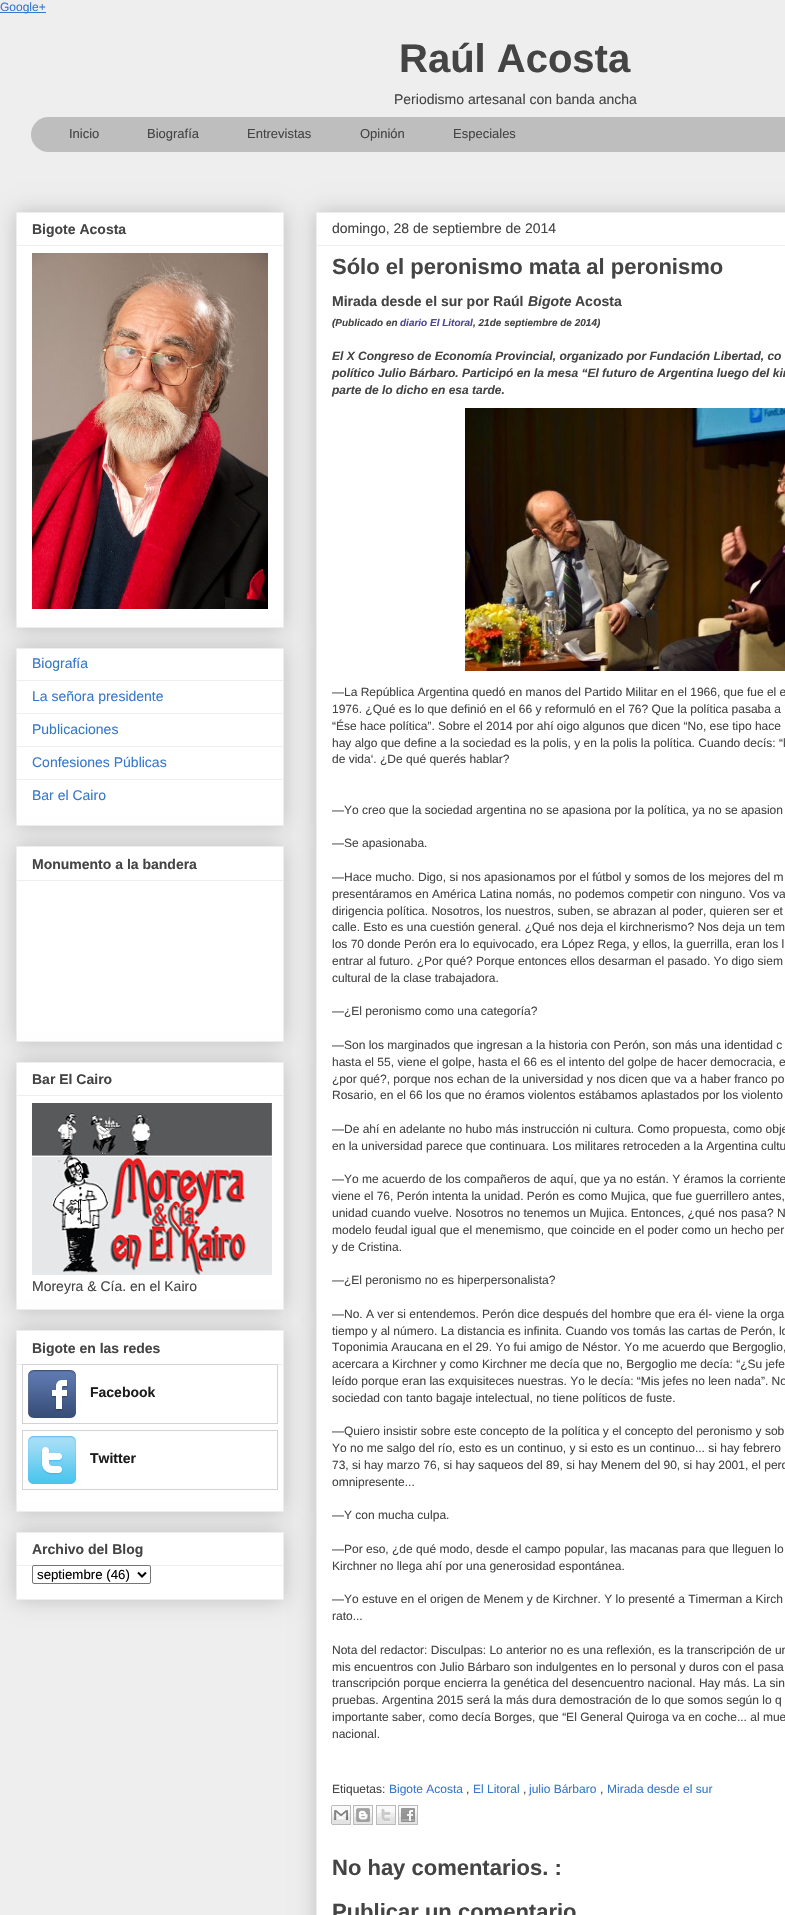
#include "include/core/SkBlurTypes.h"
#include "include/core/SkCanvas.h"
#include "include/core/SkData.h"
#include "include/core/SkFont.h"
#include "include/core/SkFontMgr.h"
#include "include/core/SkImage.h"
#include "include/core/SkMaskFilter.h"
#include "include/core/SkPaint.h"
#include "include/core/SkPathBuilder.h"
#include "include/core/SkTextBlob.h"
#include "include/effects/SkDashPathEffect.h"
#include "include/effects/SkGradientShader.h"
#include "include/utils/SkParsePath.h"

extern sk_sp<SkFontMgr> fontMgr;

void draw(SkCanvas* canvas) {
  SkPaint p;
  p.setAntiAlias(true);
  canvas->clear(SkColorSetRGB(238, 238, 238));
  p.setColor(SkColorSetRGB(55, 120, 205));
  canvas->drawRect(SkRect::MakeLTRB(0, 12, 46, 13), p);
  p.setColor(SkColorSetRGB(190, 190, 190));
  canvas->drawRoundRect(SkRect::MakeLTRB(31, 117, 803, 152), 17.5f, 17.5f, p);
  p.setColor(SkColorSetARGB(51, 0, 0, 0));
  p.setMaskFilter(SkMaskFilter::MakeBlur(kNormal_SkBlurStyle, 10));
  canvas->drawRect(SkRect::MakeLTRB(16, 212, 284, 628), p);
  p.setMaskFilter(nullptr);
  p.setColor(SK_ColorWHITE);
  canvas->drawRect(SkRect::MakeLTRB(16.5f, 212.5f, 283.5f, 627.5f), p);
  p.setStyle(SkPaint::kStroke_Style);
  p.setStrokeWidth(1);
  p.setColor(SkColorSetRGB(238, 238, 238));
  canvas->drawRect(SkRect::MakeLTRB(16.5f, 212.5f, 283.5f, 627.5f), p);
  p.setStyle(SkPaint::kFill_Style);
  canvas->drawRect(SkRect::MakeLTRB(17, 245, 283, 246), p);
  canvas->drawImageRect(SkImages::DeferredFromEncodedData(SkData::MakeFromFileName("images/1.png")), SkRect::MakeLTRB(32, 253, 268, 609), SkSamplingOptions());
  p.setColor(SkColorSetARGB(51, 0, 0, 0));
  p.setMaskFilter(SkMaskFilter::MakeBlur(kNormal_SkBlurStyle, 10));
  canvas->drawRect(SkRect::MakeLTRB(16, 648, 284, 826), p);
  p.setMaskFilter(nullptr);
  p.setColor(SK_ColorWHITE);
  canvas->drawRect(SkRect::MakeLTRB(16.5f, 648.5f, 283.5f, 825.5f), p);
  p.setStyle(SkPaint::kStroke_Style);
  p.setColor(SkColorSetRGB(238, 238, 238));
  canvas->drawRect(SkRect::MakeLTRB(16.5f, 648.5f, 283.5f, 825.5f), p);
  p.setStyle(SkPaint::kFill_Style);
  canvas->drawRect(SkRect::MakeLTRB(17, 680, 283, 681), p);
  canvas->drawRect(SkRect::MakeLTRB(17, 713, 283, 714), p);
  canvas->drawRect(SkRect::MakeLTRB(17, 746, 283, 747), p);
  canvas->drawRect(SkRect::MakeLTRB(17, 779, 283, 780), p);
  p.setColor(SkColorSetARGB(51, 0, 0, 0));
  p.setMaskFilter(SkMaskFilter::MakeBlur(kNormal_SkBlurStyle, 10));
  canvas->drawRect(SkRect::MakeLTRB(16, 846, 284, 1042), p);
  p.setMaskFilter(nullptr);
  p.setColor(SK_ColorWHITE);
  canvas->drawRect(SkRect::MakeLTRB(16.5f, 846.5f, 283.5f, 1041.5f), p);
  p.setStyle(SkPaint::kStroke_Style);
  p.setColor(SkColorSetRGB(238, 238, 238));
  canvas->drawRect(SkRect::MakeLTRB(16.5f, 846.5f, 283.5f, 1041.5f), p);
  p.setStyle(SkPaint::kFill_Style);
  canvas->drawRect(SkRect::MakeLTRB(17, 880, 283, 881), p);
  p.setColor(SkColorSetARGB(51, 0, 0, 0));
  p.setMaskFilter(SkMaskFilter::MakeBlur(kNormal_SkBlurStyle, 10));
  canvas->drawRect(SkRect::MakeLTRB(16, 1062, 284, 1310), p);
  p.setMaskFilter(nullptr);
  p.setColor(SK_ColorWHITE);
  canvas->drawRect(SkRect::MakeLTRB(16.5f, 1062.5f, 283.5f, 1309.5f), p);
  p.setStyle(SkPaint::kStroke_Style);
  p.setColor(SkColorSetRGB(238, 238, 238));
  canvas->drawRect(SkRect::MakeLTRB(16.5f, 1062.5f, 283.5f, 1309.5f), p);
  p.setStyle(SkPaint::kFill_Style);
  canvas->drawRect(SkRect::MakeLTRB(17, 1095, 283, 1096), p);
  canvas->drawImageRect(SkImages::DeferredFromEncodedData(SkData::MakeFromFileName("images/2.png")), SkRect::MakeLTRB(32, 1103, 272, 1275), SkSamplingOptions());
  p.setColor(SkColorSetARGB(51, 0, 0, 0));
  p.setMaskFilter(SkMaskFilter::MakeBlur(kNormal_SkBlurStyle, 10));
  canvas->drawRect(SkRect::MakeLTRB(16, 1330, 284, 1512), p);
  p.setMaskFilter(nullptr);
  p.setColor(SK_ColorWHITE);
  canvas->drawRect(SkRect::MakeLTRB(16.5f, 1330.5f, 283.5f, 1511.5f), p);
  p.setStyle(SkPaint::kStroke_Style);
  p.setColor(SkColorSetRGB(238, 238, 238));
  canvas->drawRect(SkRect::MakeLTRB(16.5f, 1330.5f, 283.5f, 1511.5f), p);
  p.setStyle(SkPaint::kFill_Style);
  canvas->drawRect(SkRect::MakeLTRB(17, 1364, 283, 1365), p);
  p.setStyle(SkPaint::kStroke_Style);
  p.setColor(SkColorSetRGB(211, 211, 211));
  canvas->drawRect(SkRect::MakeLTRB(22.5f, 1364.5f, 277.5f, 1423.5f), p);
  canvas->drawImageRect(SkImages::DeferredFromEncodedData(SkData::MakeFromFileName("images/3.png")), SkRect::MakeLTRB(28, 1370, 76, 1418), SkSamplingOptions());
  canvas->drawRect(SkRect::MakeLTRB(22.5f, 1430.5f, 277.5f, 1489.5f), p);
  canvas->drawImageRect(SkImages::DeferredFromEncodedData(SkData::MakeFromFileName("images/4.png")), SkRect::MakeLTRB(28, 1436, 76, 1484), SkSamplingOptions());
  p.setStyle(SkPaint::kFill_Style);
  p.setColor(SkColorSetARGB(51, 0, 0, 0));
  p.setMaskFilter(SkMaskFilter::MakeBlur(kNormal_SkBlurStyle, 10));
  canvas->drawRect(SkRect::MakeLTRB(16, 1532, 284, 1600), p);
  p.setMaskFilter(nullptr);
  p.setColor(SK_ColorWHITE);
  canvas->drawRect(SkRect::MakeLTRB(16.5f, 1532.5f, 283.5f, 1599.5f), p);
  p.setStyle(SkPaint::kStroke_Style);
  p.setColor(SkColorSetRGB(238, 238, 238));
  canvas->drawRect(SkRect::MakeLTRB(16.5f, 1532.5f, 283.5f, 1599.5f), p);
  p.setStyle(SkPaint::kFill_Style);
  canvas->drawRect(SkRect::MakeLTRB(17, 1565, 283, 1566), p);
  p.setColor(SK_ColorWHITE);
  canvas->drawRoundRect(SkRect::MakeLTRB(32.5f, 1565.5f, 150.5f, 1583.5f), 1.5f, 1.5f, p);
  p.setStyle(SkPaint::kStroke_Style);
  p.setColor(SkColorSetRGB(118, 118, 118));
  canvas->drawRoundRect(SkRect::MakeLTRB(32.5f, 1565.5f, 150.5f, 1583.5f), 1.5f, 1.5f, p);
  p.setStrokeWidth(2);
  p.setColor(SK_ColorBLACK);
  canvas->drawPath(SkPathBuilder().moveTo(138, 1572.5f).lineTo(142, 1576.5f).lineTo(146, 1572.5f).detach(), p);
  p.setStyle(SkPaint::kFill_Style);
  p.setColor(SkColorSetARGB(51, 0, 0, 0));
  p.setMaskFilter(SkMaskFilter::MakeBlur(kNormal_SkBlurStyle, 10));
  canvas->drawRect(SkRect::MakeLTRB(316, 212, 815, 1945), p);
  p.setMaskFilter(nullptr);
  p.setColor(SK_ColorWHITE);
  canvas->drawRect(SkRect::MakeLTRB(316.5f, 212.5f, 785.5f, 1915.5f), p);
  p.setStyle(SkPaint::kStroke_Style);
  p.setStrokeWidth(1);
  p.setColor(SkColorSetRGB(238, 238, 238));
  canvas->drawRect(SkRect::MakeLTRB(316.5f, 212.5f, 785.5f, 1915.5f), p);
  p.setStyle(SkPaint::kFill_Style);
  canvas->drawRect(SkRect::MakeLTRB(317, 245, 785, 246), p);
  canvas->drawImageRect(SkImages::DeferredFromEncodedData(SkData::MakeFromFileName("images/5.png")), SkRect::MakeLTRB(465, 408, 785, 671), SkSamplingOptions());
  canvas->drawImageRect(SkImages::DeferredFromEncodedData(SkData::MakeFromFileName("images/6.png")), SkRect::MakeLTRB(331, 1805, 351, 1825), SkSamplingOptions());
  canvas->drawImageRect(SkImages::DeferredFromEncodedData(SkData::MakeFromFileName("images/7.png")), SkRect::MakeLTRB(353, 1805, 373, 1825), SkSamplingOptions());
  canvas->drawImageRect(SkImages::DeferredFromEncodedData(SkData::MakeFromFileName("images/8.png")), SkRect::MakeLTRB(376, 1805, 396, 1825), SkSamplingOptions());
  canvas->drawImageRect(SkImages::DeferredFromEncodedData(SkData::MakeFromFileName("images/9.png")), SkRect::MakeLTRB(398, 1805, 418, 1825), SkSamplingOptions());
  SkFont font1(fontMgr->matchFamilyStyle("Liberation Sans", SkFontStyle::Normal()), 12);
  font1.setSubpixel(true);
  p.setColor(SkColorSetRGB(55, 120, 205));
  canvas->drawString("Google+", 0, 11, font1, p);
  SkFont font2(fontMgr->matchFamilyStyle("Liberation Sans", SkFontStyle::Bold()), 40);
  font2.setSubpixel(true);
  p.setColor(SkColorSetRGB(68, 68, 68));
  canvas->drawString("Raúl Acosta", 399, 72, font2, p);
  SkFont font3(fontMgr->matchFamilyStyle("Liberation Sans", SkFontStyle::Normal()), 14);
  font3.setSubpixel(true);
  canvas->drawString("Periodismo artesanal con banda ancha", 394, 104, font3, p);
  SkFont font4(fontMgr->matchFamilyStyle("Liberation Sans", SkFontStyle::Normal()), 13);
  font4.setSubpixel(true);
  canvas->drawString("Inicio", 69, 138, font4, p);
  canvas->drawString("Biografía", 147, 138, font4, p);
  canvas->drawString("Entrevistas", 247, 138, font4, p);
  canvas->drawString("Opinión", 360, 138, font4, p);
  canvas->drawString("Especiales", 453, 138, font4, p);
  SkFont font5(fontMgr->matchFamilyStyle("Liberation Sans", SkFontStyle::Bold()), 14);
  font5.setSubpixel(true);
  canvas->drawString("Bigote Acosta", 32, 234, font5, p);
  p.setColor(SkColorSetRGB(55, 120, 205));
  canvas->drawString("Biografía", 32, 668, font3, p);
  canvas->drawString("La señora presidente", 32, 701, font3, p);
  canvas->drawString("Publicaciones", 32, 734, font3, p);
  canvas->drawString("Confesiones Públicas", 32, 767, font3, p);
  canvas->drawString("Bar el Cairo", 32, 800, font3, p);
  p.setColor(SkColorSetRGB(68, 68, 68));
  canvas->drawString("Monumento a la bandera", 32, 869, font5, p);
  canvas->drawString("Bar El Cairo", 32, 1084, font5, p);
  canvas->drawString("Moreyra & Cía. en el Kairo", 32, 1291, font3, p);
  canvas->drawString("Bigote en las redes", 32, 1353, font5, p);
  p.setColor(SkColorSetRGB(28, 28, 28));
  canvas->drawString("Facebook", 90, 1397, font5, p);
  canvas->drawString("Twitter", 90, 1463, font5, p);
  p.setColor(SkColorSetRGB(68, 68, 68));
  canvas->drawString("Archivo del Blog", 32, 1554, font5, p);
  SkFont font6(fontMgr->matchFamilyStyle("Liberation Sans", SkFontStyle::Normal()), 13.25f);
  font6.setSubpixel(true);
  p.setColor(SK_ColorBLACK);
  canvas->drawString("septiembre (46)", 37, 1579, font6, p);
  p.setColor(SkColorSetRGB(68, 68, 68));
  canvas->drawString("domingo, 28 de septiembre de 2014", 332, 233, font3, p);
  SkFont font7(fontMgr->matchFamilyStyle("Liberation Sans", SkFontStyle::Bold()), 22);
  font7.setSubpixel(true);
  canvas->drawString("Sólo el peronismo mata al peronismo", 332, 274, font7, p);
  canvas->drawString("Mirada desde el sur por Raúl", 332, 306, font5, p);
  SkFont font8(fontMgr->matchFamilyStyle("Liberation Sans", SkFontStyle::BoldItalic()), 14);
  font8.setSubpixel(true);
  canvas->drawString("Bigote", 528, 306, font8, p);
  canvas->drawString("Acosta", 575, 306, font5, p);
  SkFont font9(fontMgr->matchFamilyStyle("Liberation Sans", SkFontStyle::BoldItalic()), 10);
  font9.setSubpixel(true);
  canvas->drawString("(Publicado en", 332, 326, font9, p);
  p.setColor(SkColorSetRGB(77, 70, 156));
  canvas->drawString("diario El Litoral", 400, 326, font9, p);
  p.setColor(SkColorSetRGB(68, 68, 68));
  canvas->drawString(", 21de septiembre de 2014)", 473, 326, font9, p);
  SkFont font10(fontMgr->matchFamilyStyle("Liberation Sans", SkFontStyle::BoldItalic()), 12);
  font10.setSubpixel(true);
  canvas->drawString("El X Congreso de Economía Provincial, organizado por Fundación Libertad, co", 332, 360, font10, p);
  canvas->drawString("político Julio Bárbaro. Participó en la mesa “El futuro de Argentina luego del kir", 332, 377, font10, p);
  canvas->drawString("parte de lo dicho en esa tarde.", 332, 394, font10, p);
  canvas->drawString("—La República Argentina quedó en manos del Partido Militar en el 1966, que fue el e", 332, 696, font1, p);
  canvas->drawString("1976. ¿Qué es lo que definió en el 66 y reformuló en el 76? Que la política pasaba a", 332, 713, font1, p);
  canvas->drawString("“Ése hace política”. Sobre el 2014 por ahí oigo algunos que dicen “No, ese tipo hace", 332, 730, font1, p);
  canvas->drawString("hay algo que define a la sociedad es la polis, y en la polis la política. Cuando decís: “h", 332, 747, font1, p);
  canvas->drawString("de vida‘. ¿De qué querés hablar?", 332, 763, font1, p);
  canvas->drawString("—Yo creo que la sociedad argentina no se apasiona por la política, ya no se apasion", 332, 814, font1, p);
  canvas->drawString("—Se apasionaba.", 332, 847, font1, p);
  canvas->drawString("—Hace mucho. Digo, si nos apasionamos por el fútbol y somos de los mejores del m", 332, 881, font1, p);
  canvas->drawString("presentáramos en América Latina nomás, no podemos competir con ninguno. Vos va", 332, 898, font1, p);
  canvas->drawString("dirigencia política. Nosotros, los nuestros, suben, se abrazan al poder, quieren ser et", 332, 915, font1, p);
  canvas->drawString("calle. Esto es una cuestión general. ¿Qué nos deja el kirchnerismo? Nos deja un tem", 332, 931, font1, p);
  canvas->drawString("los 70 donde Perón era lo equivocado, era López Rega, y ellos, la guerrilla, eran los l", 332, 948, font1, p);
  canvas->drawString("entrar al futuro. ¿Por qué? Porque entonces ellos desarman el pasado. Yo digo siem", 332, 965, font1, p);
  canvas->drawString("cultural de la clase trabajadora.", 332, 982, font1, p);
  canvas->drawString("—¿El peronismo como una categoría?", 332, 1015, font1, p);
  canvas->drawString("—Son los marginados que ingresan a la historia con Perón, son más una identidad c", 332, 1049, font1, p);
  canvas->drawString("hasta el 55, viene el golpe, hasta el 66 es el intento del golpe de hacer democracia, e", 332, 1066, font1, p);
  canvas->drawString("¿por qué?, porque nos echan de la universidad y nos dicen que va a haber franco po", 332, 1083, font1, p);
  canvas->drawString("Rosario, en el 66 los que no éramos violentos estábamos aplastados por los violento", 332, 1099, font1, p);
  canvas->drawString("—De ahí en adelante no hubo más instrucción ni cultura. Como propuesta, como obje", 332, 1133, font1, p);
  canvas->drawString("en la universidad parece que continuara. Los militares retroceden a la Argentina cultu", 332, 1150, font1, p);
  canvas->drawString("—Yo me acuerdo de los compañeros de aquí, que ya no están. Y éramos la corriente", 332, 1183, font1, p);
  canvas->drawString("viene el 76, Perón intenta la unidad. Perón es como Mujica, que fue guerrillero antes,", 332, 1200, font1, p);
  canvas->drawString("unidad cuando vuelve. Nosotros no tenemos un Mujica. Entonces, ¿qué nos pasa? N", 332, 1217, font1, p);
  canvas->drawString("modelo feudal igual que el menemismo, que coincide en el poder como un hecho per", 332, 1234, font1, p);
  canvas->drawString("y de Cristina.", 332, 1251, font1, p);
  canvas->drawString("—¿El peronismo no es hiperpersonalista?", 332, 1284, font1, p);
  canvas->drawString("—No. A ver si entendemos. Perón dice después del hombre que era él- viene la orga", 332, 1318, font1, p);
  canvas->drawString("tiempo y al número. La distancia es infinita. Cuando vos tomás las cartas de Perón, lo", 332, 1335, font1, p);
  canvas->drawString("Toponimia Araucana en el 29. Yo fui amigo de Néstor. Yo me acuerdo que Bergoglio,", 332, 1351, font1, p);
  canvas->drawString("acercara a Kirchner y como Kirchner me decía que no, Bergoglio me decía: “¿Su jefe", 332, 1368, font1, p);
  canvas->drawString("leído porque eran las exquisiteces nuestras. Yo le decía: “Mis jefes no leen nada”. No", 332, 1385, font1, p);
  canvas->drawString("sociedad con tanto bagaje intelectual, no tiene políticos de fuste.", 332, 1402, font1, p);
  canvas->drawString("—Quiero insistir sobre este concepto de la política y el concepto del peronismo y sob", 332, 1435, font1, p);
  canvas->drawString("Yo no me salgo del río, esto es un continuo, y si esto es un continuo... si hay febrero", 332, 1452, font1, p);
  canvas->drawString("73, si hay marzo 76, si hay saqueos del 89, si hay Menem del 90, si hay 2001, el pero", 332, 1469, font1, p);
  canvas->drawString("omnipresente...", 332, 1486, font1, p);
  canvas->drawString("—Y con mucha culpa.", 332, 1519, font1, p);
  canvas->drawString("—Por eso, ¿de qué modo, desde el campo popular, las macanas para que lleguen lo", 332, 1553, font1, p);
  canvas->drawString("Kirchner no llega ahí por una generosidad espontánea.", 332, 1570, font1, p);
  canvas->drawString("—Yo estuve en el origen de Menem y de Kirchner. Y lo presenté a Timerman a Kirch", 332, 1603, font1, p);
  canvas->drawString("rato...", 332, 1620, font1, p);
  canvas->drawString("Nota del redactor: Disculpas: Lo anterior no es una reflexión, es la transcripción de un", 332, 1654, font1, p);
  canvas->drawString("mis encuentros con Julio Bárbaro son indulgentes en lo personal y duros con el pasa", 332, 1671, font1, p);
  canvas->drawString("transcripción porque encierra la genética del desencuentro nacional. Hay más. La sin", 332, 1687, font1, p);
  canvas->drawString("pruebas. Argentina 2015 será la más dura demostración de lo que somos según lo q", 332, 1704, font1, p);
  canvas->drawString("importante saber, como decía Borges, que “El General Quiroga va en coche... al mue", 332, 1721, font1, p);
  canvas->drawString("nacional.", 332, 1738, font1, p);
  canvas->drawString("Etiquetas:", 332, 1793, font1, p);
  p.setColor(SkColorSetRGB(55, 120, 205));
  canvas->drawString("Bigote Acosta", 389, 1793, font1, p);
  p.setColor(SkColorSetRGB(68, 68, 68));
  canvas->drawString(",", 466, 1793, font1, p);
  p.setColor(SkColorSetRGB(55, 120, 205));
  canvas->drawString("El Litoral", 473, 1793, font1, p);
  p.setColor(SkColorSetRGB(68, 68, 68));
  canvas->drawString(",", 523, 1793, font1, p);
  p.setColor(SkColorSetRGB(55, 120, 205));
  canvas->drawString("julio Bárbaro", 529, 1793, font1, p);
  p.setColor(SkColorSetRGB(68, 68, 68));
  canvas->drawString(",", 600, 1793, font1, p);
  p.setColor(SkColorSetRGB(55, 120, 205));
  canvas->drawString("Mirada desde el sur", 607, 1793, font1, p);
  p.setColor(SkColorSetRGB(68, 68, 68));
  canvas->drawString("No hay comentarios. :", 332, 1875, font7, p);
  canvas->drawString("Publicar un comentario", 332, 1919, font7, p);
}
